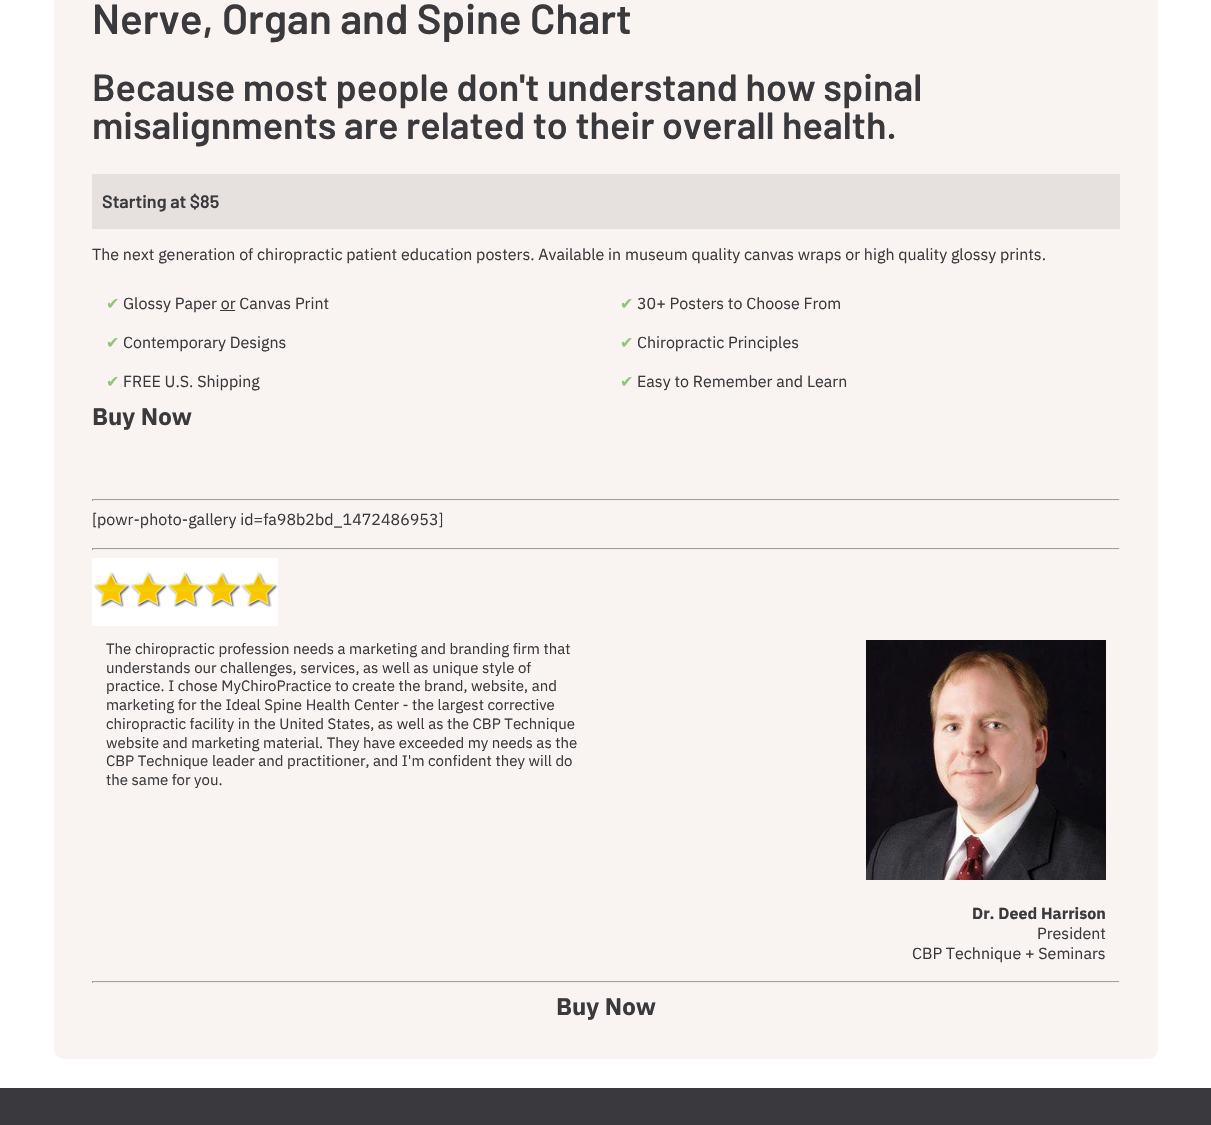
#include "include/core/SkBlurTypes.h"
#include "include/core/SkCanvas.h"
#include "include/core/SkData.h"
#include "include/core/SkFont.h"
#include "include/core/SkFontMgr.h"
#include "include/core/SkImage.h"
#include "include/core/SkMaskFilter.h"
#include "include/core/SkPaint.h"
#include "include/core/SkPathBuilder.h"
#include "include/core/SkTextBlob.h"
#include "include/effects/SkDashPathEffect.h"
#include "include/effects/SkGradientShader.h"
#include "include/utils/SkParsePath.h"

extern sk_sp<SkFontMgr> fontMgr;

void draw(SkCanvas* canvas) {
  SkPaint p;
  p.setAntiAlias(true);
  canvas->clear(SK_ColorWHITE);
  p.setColor(SkColorSetRGB(249, 243, 241));
  canvas->drawRoundRect(SkRect::MakeLTRB(54, -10, 1158, 1059), 10, 10, p);
  p.setColor(SkColorSetRGB(230, 225, 223));
  canvas->drawRect(SkRect::MakeLTRB(92, 174, 1120, 229), p);
  p.setColor(SkColorSetRGB(58, 58, 62));
  canvas->drawRect(SkRect::MakeLTRB(220, 310, 235, 311), p);
  p.setColor(SkColorSetRGB(159, 159, 159));
  canvas->drawRect(SkRect::MakeLTRB(92, 499, 1120, 500), p);
  p.setColor(SkColorSetRGB(238, 238, 238));
  canvas->drawRect(SkRect::MakeLTRB(1119, 499, 1120, 501), p);
  canvas->drawRect(SkRect::MakeLTRB(92, 500, 1120, 501), p);
  p.setColor(SkColorSetRGB(159, 159, 159));
  canvas->drawRect(SkRect::MakeLTRB(92, 499, 93, 501), p);
  canvas->drawRect(SkRect::MakeLTRB(92, 548, 1120, 549), p);
  p.setColor(SkColorSetRGB(238, 238, 238));
  canvas->drawRect(SkRect::MakeLTRB(1119, 548, 1120, 550), p);
  canvas->drawRect(SkRect::MakeLTRB(92, 549, 1120, 550), p);
  p.setColor(SkColorSetRGB(159, 159, 159));
  canvas->drawRect(SkRect::MakeLTRB(92, 548, 93, 550), p);
  canvas->drawImageRect(SkImages::DeferredFromEncodedData(SkData::MakeFromFileName("images/1.png")), SkRect::MakeLTRB(92, 558, 278, 626), SkSamplingOptions());
  canvas->drawImageRect(SkImages::DeferredFromEncodedData(SkData::MakeFromFileName("images/2.png")), SkRect::MakeLTRB(866, 640, 1106, 880), SkSamplingOptions());
  canvas->drawRect(SkRect::MakeLTRB(92, 981, 1120, 982), p);
  p.setColor(SkColorSetRGB(238, 238, 238));
  canvas->drawRect(SkRect::MakeLTRB(1119, 981, 1120, 983), p);
  canvas->drawRect(SkRect::MakeLTRB(92, 982, 1120, 983), p);
  p.setColor(SkColorSetRGB(159, 159, 159));
  canvas->drawRect(SkRect::MakeLTRB(92, 981, 93, 983), p);
  p.setColor(SkColorSetRGB(58, 58, 62));
  canvas->drawRect(SkRect::MakeLTRB(0, 1088, 1211, 1125), p);
  SkFont font1(fontMgr->matchFamilyStyle("Barlow", SkFontStyle(600, SkFontStyle::kNormal_Width, SkFontStyle::kUpright_Slant)), 42);
  font1.setSubpixel(true);
  canvas->drawString("Nerve, Organ and Spine Chart", 92, 34, font1, p);
  SkFont font2(fontMgr->matchFamilyStyle("Barlow", SkFontStyle(600, SkFontStyle::kNormal_Width, SkFontStyle::kUpright_Slant)), 37.8f);
  font2.setSubpixel(true);
  canvas->drawString("Because most people don't understand how spinal", 92, 101, font2, p);
  canvas->drawString("misalignments are related to their overall health.", 92, 139, font2, p);
  SkFont font3(fontMgr->matchFamilyStyle("Barlow", SkFontStyle(600, SkFontStyle::kNormal_Width, SkFontStyle::kUpright_Slant)), 18);
  font3.setSubpixel(true);
  canvas->drawString("Starting at $85", 102, 208, font3, p);
  SkFont font4(fontMgr->matchFamilyStyle("IBM Plex Sans", SkFontStyle::Normal()), 16);
  font4.setSubpixel(true);
  canvas->drawString("The next generation of chiropractic patient education posters. Available in museum quality canvas wraps or high quality glossy prints.", 92, 260, font4, p);
  SkFont font5(fontMgr->matchFamilyStyle("DejaVu Sans", SkFontStyle::Normal()), 16);
  font5.setSubpixel(true);
  p.setColor(SkColorSetRGB(147, 196, 125));
  canvas->drawString("✔", 106, 309, font5, p);
  p.setColor(SkColorSetRGB(58, 58, 62));
  canvas->drawString("Glossy Paper or Canvas Print", 123, 309, font4, p);
  p.setColor(SkColorSetRGB(147, 196, 125));
  canvas->drawString("✔", 106, 348, font5, p);
  p.setColor(SkColorSetRGB(58, 58, 62));
  canvas->drawString("Contemporary Designs", 123, 348, font4, p);
  p.setColor(SkColorSetRGB(147, 196, 125));
  canvas->drawString("✔", 106, 387, font5, p);
  p.setColor(SkColorSetRGB(58, 58, 62));
  canvas->drawString("FREE U.S. Shipping", 123, 387, font4, p);
  p.setColor(SkColorSetRGB(147, 196, 125));
  canvas->drawString("✔", 620, 309, font5, p);
  p.setColor(SkColorSetRGB(58, 58, 62));
  canvas->drawString("30+ Posters to Choose From", 637, 309, font4, p);
  p.setColor(SkColorSetRGB(147, 196, 125));
  canvas->drawString("✔", 620, 348, font5, p);
  p.setColor(SkColorSetRGB(58, 58, 62));
  canvas->drawString("Chiropractic Principles", 637, 348, font4, p);
  p.setColor(SkColorSetRGB(147, 196, 125));
  canvas->drawString("✔", 620, 387, font5, p);
  p.setColor(SkColorSetRGB(58, 58, 62));
  canvas->drawString("Easy to Remember and Learn", 637, 387, font4, p);
  SkFont font6(fontMgr->matchFamilyStyle("IBM Plex Sans", SkFontStyle::Bold()), 24);
  font6.setSubpixel(true);
  canvas->drawString("Buy Now", 92, 425, font6, p);
  canvas->drawString("[powr-photo-gallery id=fa98b2bd_1472486953]", 92, 525, font4, p);
  SkFont font7(fontMgr->matchFamilyStyle("IBM Plex Sans", SkFontStyle::Normal()), 15);
  font7.setSubpixel(true);
  canvas->drawString("The chiropractic profession needs a marketing and branding firm that", 106, 654, font7, p);
  canvas->drawString("understands our challenges, services, as well as unique style of", 106, 673, font7, p);
  canvas->drawString("practice. I chose MyChiroPractice to create the brand, website, and", 106, 691, font7, p);
  canvas->drawString("marketing for the Ideal Spine Health Center - the largest corrective", 106, 710, font7, p);
  canvas->drawString("chiropractic facility in the United States, as well as the CBP Technique", 106, 729, font7, p);
  canvas->drawString("website and marketing material. They have exceeded my needs as the", 106, 748, font7, p);
  canvas->drawString("CBP Technique leader and practitioner, and I'm confident they will do", 106, 766, font7, p);
  canvas->drawString("the same for you.", 106, 785, font7, p);
  SkFont font8(fontMgr->matchFamilyStyle("IBM Plex Sans", SkFontStyle::Bold()), 16);
  font8.setSubpixel(true);
  canvas->drawString("Dr. Deed Harrison", 972, 919, font8, p);
  canvas->drawString("President", 1037, 939, font4, p);
  canvas->drawString("CBP Technique + Seminars", 912, 959, font4, p);
  canvas->drawString("Buy Now", 556, 1015, font6, p);
}
